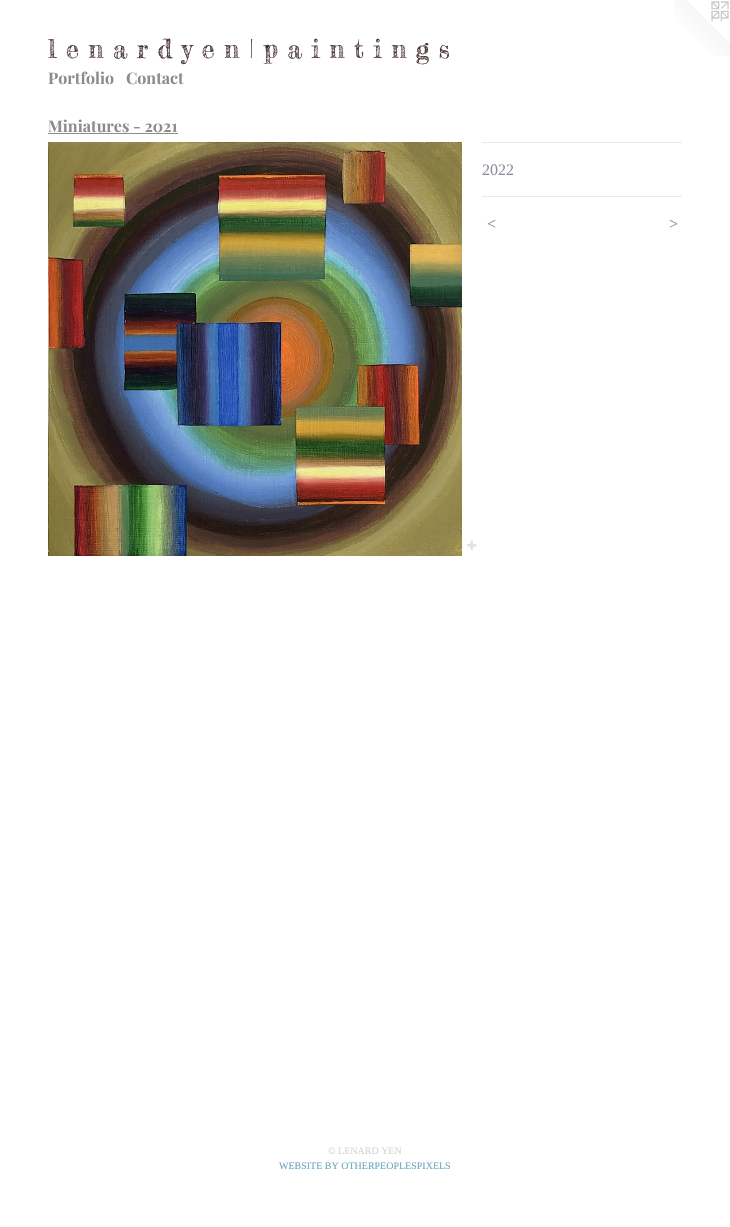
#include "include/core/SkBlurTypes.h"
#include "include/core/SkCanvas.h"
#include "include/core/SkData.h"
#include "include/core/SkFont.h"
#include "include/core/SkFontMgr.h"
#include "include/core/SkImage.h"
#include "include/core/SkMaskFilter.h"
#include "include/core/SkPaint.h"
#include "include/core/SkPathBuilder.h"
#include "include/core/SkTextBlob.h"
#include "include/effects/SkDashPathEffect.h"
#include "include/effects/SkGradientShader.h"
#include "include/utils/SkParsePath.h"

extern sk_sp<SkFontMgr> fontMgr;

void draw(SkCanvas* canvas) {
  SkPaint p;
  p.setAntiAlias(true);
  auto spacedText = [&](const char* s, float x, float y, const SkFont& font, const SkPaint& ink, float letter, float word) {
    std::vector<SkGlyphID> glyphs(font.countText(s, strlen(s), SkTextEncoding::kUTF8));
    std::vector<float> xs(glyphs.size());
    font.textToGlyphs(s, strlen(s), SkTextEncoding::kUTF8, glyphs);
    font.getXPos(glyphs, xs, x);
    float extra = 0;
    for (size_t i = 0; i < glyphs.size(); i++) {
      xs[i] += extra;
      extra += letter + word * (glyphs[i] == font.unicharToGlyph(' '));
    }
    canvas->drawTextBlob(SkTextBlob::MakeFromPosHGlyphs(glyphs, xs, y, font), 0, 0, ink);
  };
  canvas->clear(SK_ColorWHITE);
  canvas->drawImageRect(SkImages::DeferredFromEncodedData(SkData::MakeFromFileName("images/1.png")), SkRect::MakeLTRB(674, 0, 730, 56), SkSamplingOptions());
  p.setColor(SkColorSetRGB(140, 140, 140));
  canvas->drawRect(SkRect::MakeLTRB(48, 133, 178, 134), p);
  canvas->drawImageRect(SkImages::DeferredFromEncodedData(SkData::MakeFromFileName("images/2.png")), SkRect::MakeLTRB(48, 142, 462, 556), SkSamplingOptions());
  canvas->drawImageRect(SkImages::DeferredFromEncodedData(SkData::MakeFromFileName("images/3.png")), SkRect::MakeLTRB(467, 540, 477, 550), SkSamplingOptions());
  p.setColor(SkColorSetRGB(233, 232, 237));
  canvas->drawRect(SkRect::MakeLTRB(482, 142, 682, 143), p);
  canvas->drawRect(SkRect::MakeLTRB(482, 196, 682, 197), p);
  SkFont font1(fontMgr->matchFamilyStyle("Fredericka the Great", SkFontStyle::Normal()), 26);
  font1.setSubpixel(true);
  p.setColor(SkColorSetRGB(67, 45, 45));
  canvas->drawString("l e n a r d y e n | p a i n t i n g s", 48, 58, font1, p);
  SkFont font2(fontMgr->matchFamilyStyle("Playfair Display", SkFontStyle::Bold()), 16);
  font2.setSubpixel(true);
  p.setColor(SkColorSetRGB(140, 140, 140));
  canvas->drawString("Portfolio", 48, 84, font2, p);
  canvas->drawString("Contact", 126, 84, font2, p);
  canvas->drawString("Miniatures - 2021", 48, 132, font2, p);
  SkFont font3(fontMgr->matchFamilyStyle("Liberation Serif", SkFontStyle::Normal()), 16);
  font3.setSubpixel(true);
  p.setColor(SkColorSetRGB(146, 138, 163));
  canvas->drawString("2022", 482, 175, font3, p);
  SkFont font4(fontMgr->matchFamilyStyle("Liberation Serif", SkFontStyle::Italic()), 16);
  font4.setSubpixel(true);
  spacedText("<", 486, 229, font4, p, 1, 0);
  spacedText(">", 668, 229, font4, p, 1, 0);
  SkFont font5(fontMgr->matchFamilyStyle("Liberation Serif", SkFontStyle::Normal()), 10);
  font5.setSubpixel(true);
  p.setColor(SkColorSetRGB(214, 214, 214));
  canvas->drawString("© LENARD YEN", 328, 1154, font5, p);
  p.setColor(SkColorSetRGB(112, 168, 192));
  canvas->drawString("WEBSITE BY OTHERPEOPLESPIXELS", 279, 1169, font5, p);
}
